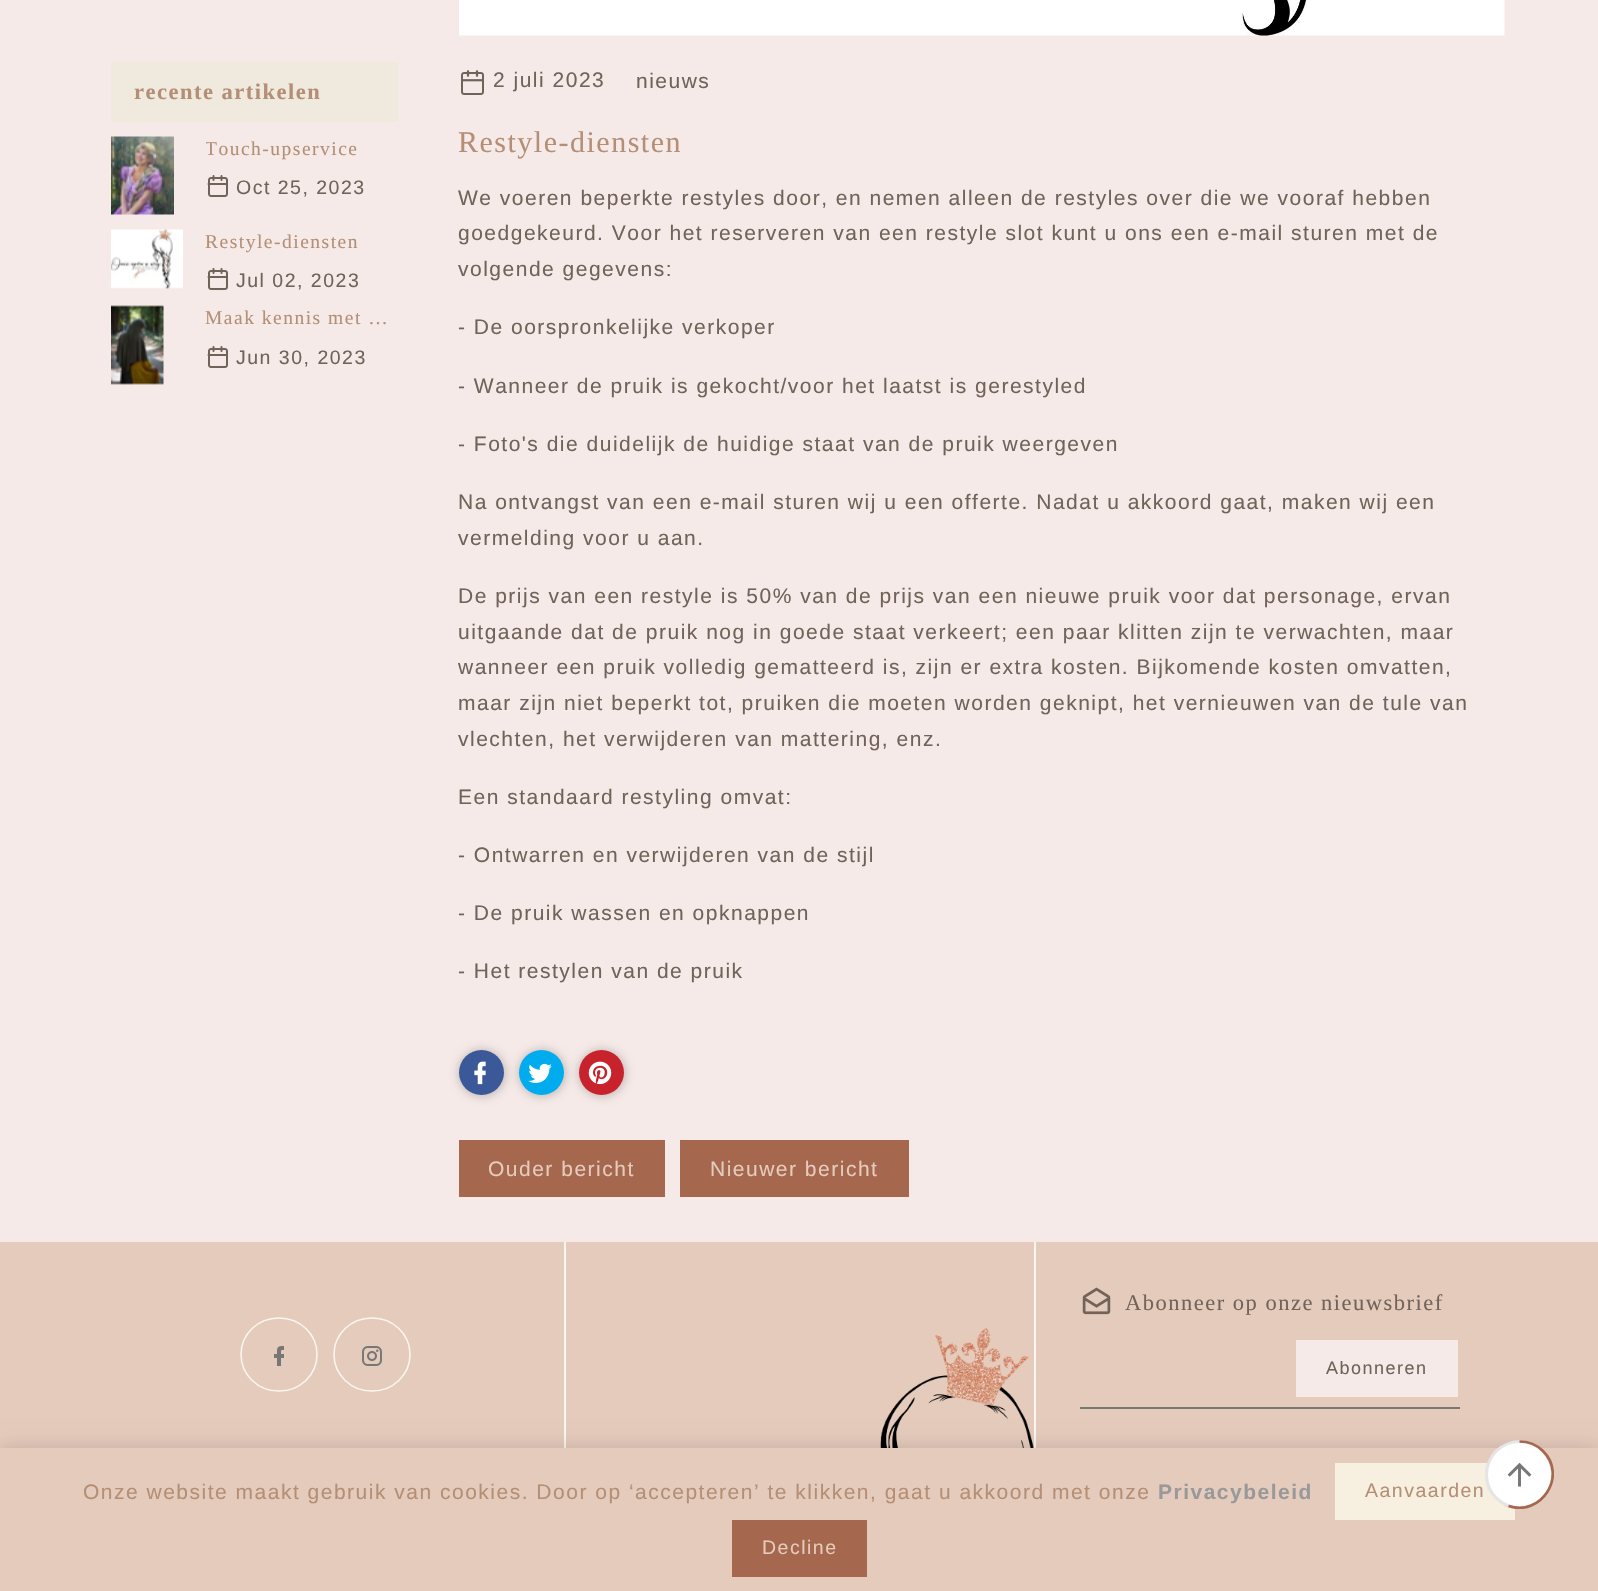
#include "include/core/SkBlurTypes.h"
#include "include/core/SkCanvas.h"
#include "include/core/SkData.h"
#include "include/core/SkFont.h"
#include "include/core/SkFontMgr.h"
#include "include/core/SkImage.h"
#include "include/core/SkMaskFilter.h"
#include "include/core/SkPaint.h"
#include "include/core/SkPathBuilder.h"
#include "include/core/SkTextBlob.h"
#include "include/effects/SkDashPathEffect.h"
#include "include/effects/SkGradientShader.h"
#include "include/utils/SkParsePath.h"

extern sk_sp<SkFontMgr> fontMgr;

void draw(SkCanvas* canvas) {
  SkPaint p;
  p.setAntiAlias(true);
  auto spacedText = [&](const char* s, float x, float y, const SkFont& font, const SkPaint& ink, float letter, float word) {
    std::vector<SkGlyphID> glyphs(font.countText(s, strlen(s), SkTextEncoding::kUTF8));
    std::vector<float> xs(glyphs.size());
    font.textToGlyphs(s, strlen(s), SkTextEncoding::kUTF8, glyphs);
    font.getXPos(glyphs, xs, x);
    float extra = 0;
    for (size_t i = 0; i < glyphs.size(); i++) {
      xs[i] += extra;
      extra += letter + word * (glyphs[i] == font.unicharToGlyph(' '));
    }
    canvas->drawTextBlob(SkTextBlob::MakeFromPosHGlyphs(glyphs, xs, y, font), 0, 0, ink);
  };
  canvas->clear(SkColorSetRGB(245, 234, 231));
  p.setColor(SkColorSetRGB(239, 233, 222));
  canvas->drawRect(SkRect::MakeLTRB(111, 62, 398, 122), p);
  canvas->drawImageRect(SkImages::DeferredFromEncodedData(SkData::MakeFromFileName("images/1.png")), SkRect::MakeLTRB(111, 136, 174, 215), SkSamplingOptions());
  canvas->drawImageRect(SkImages::DeferredFromEncodedData(SkData::MakeFromFileName("images/2.png")), SkRect::MakeLTRB(207, 175, 228, 197), SkSamplingOptions());
  canvas->drawImageRect(SkImages::DeferredFromEncodedData(SkData::MakeFromFileName("images/3.png")), SkRect::MakeLTRB(111, 229, 183, 289), SkSamplingOptions());
  canvas->drawImageRect(SkImages::DeferredFromEncodedData(SkData::MakeFromFileName("images/2.png")), SkRect::MakeLTRB(207, 268, 228, 290), SkSamplingOptions());
  canvas->drawImageRect(SkImages::DeferredFromEncodedData(SkData::MakeFromFileName("images/4.png")), SkRect::MakeLTRB(111, 305, 164, 385), SkSamplingOptions());
  canvas->drawImageRect(SkImages::DeferredFromEncodedData(SkData::MakeFromFileName("images/2.png")), SkRect::MakeLTRB(207, 346, 228, 368), SkSamplingOptions());
  canvas->drawImageRect(SkImages::DeferredFromEncodedData(SkData::MakeFromFileName("images/5.png")), SkRect::MakeLTRB(459, 0, 1505, 36), SkSamplingOptions());
  canvas->drawImageRect(SkImages::DeferredFromEncodedData(SkData::MakeFromFileName("images/6.png")), SkRect::MakeLTRB(461, 70, 484, 95), SkSamplingOptions());
  p.setColor(SkColorSetARGB(51, 0, 0, 0));
  p.setMaskFilter(SkMaskFilter::MakeBlur(kNormal_SkBlurStyle, 4.5f));
  canvas->drawRoundRect(SkRect::MakeLTRB(458, 1049, 506, 1097), 24, 24, p);
  p.setMaskFilter(nullptr);
  p.setColor(SkColorSetRGB(59, 89, 152));
  canvas->drawCircle(481.5f, 1072.5f, 22.5f, p);
  canvas->drawImageRect(SkImages::DeferredFromEncodedData(SkData::MakeFromFileName("images/7.png")), SkRect::MakeLTRB(474, 1061, 486, 1085), SkSamplingOptions());
  p.setColor(SkColorSetARGB(51, 0, 0, 0));
  p.setMaskFilter(SkMaskFilter::MakeBlur(kNormal_SkBlurStyle, 4.5f));
  canvas->drawRoundRect(SkRect::MakeLTRB(518, 1049, 566, 1097), 24, 24, p);
  p.setMaskFilter(nullptr);
  p.setColor(SkColorSetRGB(0, 172, 237));
  canvas->drawCircle(541.5f, 1072.5f, 22.5f, p);
  canvas->drawImageRect(SkImages::DeferredFromEncodedData(SkData::MakeFromFileName("images/8.png")), SkRect::MakeLTRB(528, 1063, 552, 1083), SkSamplingOptions());
  p.setColor(SkColorSetARGB(51, 0, 0, 0));
  p.setMaskFilter(SkMaskFilter::MakeBlur(kNormal_SkBlurStyle, 4.5f));
  canvas->drawRoundRect(SkRect::MakeLTRB(578, 1049, 626, 1097), 24, 24, p);
  p.setMaskFilter(nullptr);
  p.setColor(SkColorSetRGB(200, 35, 44));
  canvas->drawCircle(601.5f, 1072.5f, 22.5f, p);
  canvas->drawImageRect(SkImages::DeferredFromEncodedData(SkData::MakeFromFileName("images/9.png")), SkRect::MakeLTRB(588, 1061, 612, 1085), SkSamplingOptions());
  p.setColor(SkColorSetRGB(165, 103, 77));
  canvas->drawRect(SkRect::MakeLTRB(459, 1140, 665, 1197), p);
  canvas->drawRect(SkRect::MakeLTRB(680, 1140, 909, 1197), p);
  p.setColor(SkColorSetRGB(229, 203, 188));
  canvas->drawRect(SkRect::MakeLTRB(0, 1242, 1598, 1448), p);
  p.setStyle(SkPaint::kStroke_Style);
  p.setStrokeWidth(1.5f);
  p.setColor(SkColorSetRGB(250, 247, 242));
  canvas->drawPath(SkPathBuilder().moveTo(279, 1318).cubicTo(300, 1318, 317, 1334, 317, 1354.5f).cubicTo(317, 1375, 300, 1391, 279, 1391).cubicTo(258, 1391, 241, 1375, 241, 1354.5f).cubicTo(241, 1334, 258, 1318, 279, 1318).close().detach(), p);
  canvas->drawImageRect(SkImages::DeferredFromEncodedData(SkData::MakeFromFileName("images/10.png")), SkRect::MakeLTRB(274, 1346, 284, 1366), SkSamplingOptions());
  canvas->drawPath(SkPathBuilder().moveTo(372, 1318).cubicTo(393, 1318, 410, 1334, 410, 1354.5f).cubicTo(410, 1375, 393, 1391, 372, 1391).cubicTo(351, 1391, 334, 1375, 334, 1354.5f).cubicTo(334, 1334, 351, 1318, 372, 1318).close().detach(), p);
  canvas->drawImageRect(SkImages::DeferredFromEncodedData(SkData::MakeFromFileName("images/11.png")), SkRect::MakeLTRB(362, 1346, 382, 1366), SkSamplingOptions());
  p.setStyle(SkPaint::kFill_Style);
  canvas->drawRect(SkRect::MakeLTRB(1034, 1242, 1036, 1448), p);
  canvas->drawRect(SkRect::MakeLTRB(564, 1242, 566, 1448), p);
  canvas->drawImageRect(SkImages::DeferredFromEncodedData(SkData::MakeFromFileName("images/12.png")), SkRect::MakeLTRB(880, 1328, 1034, 1448), SkSamplingOptions());
  canvas->drawImageRect(SkImages::DeferredFromEncodedData(SkData::MakeFromFileName("images/13.png")), SkRect::MakeLTRB(1082, 1287, 1111, 1315), SkSamplingOptions());
  p.setColor(SkColorSetRGB(119, 119, 119));
  canvas->drawRect(SkRect::MakeLTRB(1080, 1407, 1460, 1409), p);
  p.setColor(SkColorSetRGB(245, 234, 231));
  canvas->drawRect(SkRect::MakeLTRB(1296, 1340, 1458, 1397), p);
  p.setColor(SkColorSetARGB(51, 0, 0, 0));
  p.setMaskFilter(SkMaskFilter::MakeBlur(kNormal_SkBlurStyle, 11));
  canvas->drawRect(SkRect::MakeLTRB(0, 1451, 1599, 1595), p);
  p.setMaskFilter(nullptr);
  p.setColor(SkColorSetRGB(229, 203, 188));
  canvas->drawRect(SkRect::MakeLTRB(0, 1448, 1598, 1591), p);
  p.setColor(SkColorSetRGB(247, 239, 224));
  canvas->drawRect(SkRect::MakeLTRB(1335, 1463, 1515, 1520), p);
  p.setColor(SkColorSetRGB(165, 103, 77));
  canvas->drawRect(SkRect::MakeLTRB(732, 1520, 867, 1577), p);
  p.setColor(SK_ColorWHITE);
  canvas->drawCircle(1519.5f, 1474.5f, 34.5f, p);
  p.setStyle(SkPaint::kStroke_Style);
  p.setStrokeWidth(3);
  p.setColor(SkColorSetARGB(26, 0, 0, 0));
  canvas->drawCircle(1519.5f, 1474.5f, 33, p);
  canvas->save();
  canvas->clipRect(SkRect::MakeLTRB(1485, 1440, 1554, 1509));
  p.setStrokeWidth(2.7f);
  p.setColor(SkColorSetRGB(165, 103, 77));
  canvas->drawPath(SkPathBuilder().moveTo(1519.5f, 1441.5f).cubicTo(1528, 1441.5f, 1537, 1445, 1543, 1451).cubicTo(1568, 1476, 1541, 1517, 1508.5f, 1506).detach(), p);
  canvas->restore();
  canvas->drawImageRect(SkImages::DeferredFromEncodedData(SkData::MakeFromFileName("images/14.png")), SkRect::MakeLTRB(1507, 1462, 1532, 1487), SkSamplingOptions());
  SkFont font1(fontMgr->matchFamilyStyle("Liberation Serif", SkFontStyle::Bold()), 22.5f);
  font1.setSubpixel(true);
  p.setStyle(SkPaint::kFill_Style);
  p.setColor(SkColorSetRGB(180, 143, 118));
  spacedText("recente artikelen", 134, 99, font1, p, 1.5f, 0);
  canvas->save();
  canvas->clipRect(SkRect::MakeLTRB(206, 137, 398, 161));
  SkFont font2(fontMgr->matchFamilyStyle("Liberation Serif", SkFontStyle::Normal()), 19.5f);
  font2.setSubpixel(true);
  spacedText("Touch-upservice", 205, 155, font2, p, 1.5f, 0);
  canvas->restore();
  SkFont font3(fontMgr->matchFamilyStyle("Liberation Sans", SkFontStyle::Normal()), 19.5f);
  font3.setSubpixel(true);
  p.setColor(SkColorSetRGB(113, 99, 90));
  spacedText("Oct 25, 2023", 236, 194, font3, p, 1.5f, 0);
  p.setColor(SkColorSetRGB(180, 143, 118));
  spacedText("Restyle-diensten", 205, 248, font2, p, 1.5f, 0);
  p.setColor(SkColorSetRGB(113, 99, 90));
  spacedText("Jul 02, 2023", 236, 287, font3, p, 1.5f, 0);
  p.setColor(SkColorSetRGB(180, 143, 118));
  spacedText("Maak kennis met …", 205, 324, font2, p, 1.5f, 0);
  p.setColor(SkColorSetRGB(113, 99, 90));
  spacedText("Jun 30, 2023", 236, 364, font3, p, 1.5f, 0);
  SkFont font4(fontMgr->matchFamilyStyle("Liberation Sans", SkFontStyle::Normal()), 21);
  font4.setSubpixel(true);
  spacedText("2 juli 2023", 493, 87, font4, p, 1.5f, 0);
  spacedText("nieuws", 636, 88, font4, p, 1.5f, 0);
  SkFont font5(fontMgr->matchFamilyStyle("Liberation Serif", SkFontStyle::Normal()), 30);
  font5.setSubpixel(true);
  p.setColor(SkColorSetRGB(180, 143, 118));
  spacedText("Restyle-diensten", 458, 152, font5, p, 1.5f, 0);
  p.setColor(SkColorSetRGB(113, 99, 90));
  spacedText("We voeren beperkte restyles door, en nemen alleen de restyles over die we vooraf hebben", 458, 205, font4, p, 1.5f, 0);
  spacedText("goedgekeurd. Voor het reserveren van een restyle slot kunt u ons een e-mail sturen met de", 458, 240, font4, p, 1.5f, 0);
  spacedText("volgende gegevens:", 458, 276, font4, p, 1.5f, 0);
  spacedText("- De oorspronkelijke verkoper", 458, 334, font4, p, 1.5f, 0);
  spacedText("- Wanneer de pruik is gekocht/voor het laatst is gerestyled", 458, 393, font4, p, 1.5f, 0);
  spacedText("- Foto's die duidelijk de huidige staat van de pruik weergeven", 458, 451, font4, p, 1.5f, 0);
  spacedText("Na ontvangst van een e-mail sturen wij u een offerte. Nadat u akkoord gaat, maken wij een", 458, 509, font4, p, 1.5f, 0);
  spacedText("vermelding voor u aan.", 458, 545, font4, p, 1.5f, 0);
  spacedText("De prijs van een restyle is 50% van de prijs van een nieuwe pruik voor dat personage, ervan", 458, 603, font4, p, 1.5f, 0);
  spacedText("uitgaande dat de pruik nog in goede staat verkeert; een paar klitten zijn te verwachten, maar", 458, 639, font4, p, 1.5f, 0);
  spacedText("wanneer een pruik volledig gematteerd is, zijn er extra kosten. Bijkomende kosten omvatten,", 458, 674, font4, p, 1.5f, 0);
  spacedText("maar zijn niet beperkt tot, pruiken die moeten worden geknipt, het vernieuwen van de tule van", 458, 710, font4, p, 1.5f, 0);
  spacedText("vlechten, het verwijderen van mattering, enz.", 458, 746, font4, p, 1.5f, 0);
  spacedText("Een standaard restyling omvat:", 458, 804, font4, p, 1.5f, 0);
  spacedText("- Ontwarren en verwijderen van de stijl", 458, 862, font4, p, 1.5f, 0);
  spacedText("- De pruik wassen en opknappen", 458, 920, font4, p, 1.5f, 0);
  spacedText("- Het restylen van de pruik", 458, 978, font4, p, 1.5f, 0);
  p.setColor(SkColorSetRGB(229, 203, 188));
  spacedText("Ouder bericht", 488, 1176, font4, p, 1.5f, 0);
  spacedText("Nieuwer bericht", 710, 1176, font4, p, 1.5f, 0);
  SkFont font6(fontMgr->matchFamilyStyle("Liberation Serif", SkFontStyle::Normal()), 22.5f);
  font6.setSubpixel(true);
  p.setColor(SkColorSetRGB(113, 99, 90));
  spacedText("Abonneer op onze nieuwsbrief", 1125, 1310, font6, p, 1.5f, 0);
  SkFont font7(fontMgr->matchFamilyStyle("Liberation Sans", SkFontStyle::Normal()), 18);
  font7.setSubpixel(true);
  spacedText("Abonneren", 1326, 1374, font7, p, 1.5f, 0);
  p.setColor(SkColorSetRGB(180, 143, 118));
  spacedText("Onze website maakt gebruik van cookies. Door op ‘accepteren’ te klikken, gaat u akkoord met onze", 83, 1499, font4, p, 1.5f, 0);
  SkFont font8(fontMgr->matchFamilyStyle("Liberation Sans", SkFontStyle::Bold()), 21);
  font8.setSubpixel(true);
  p.setColor(SkColorSetRGB(153, 153, 153));
  spacedText("Privacybeleid", 1158, 1499, font8, p, 1.5f, 0);
  p.setColor(SkColorSetRGB(180, 143, 118));
  spacedText("Aanvaarden", 1365, 1497, font3, p, 1.5f, 0);
  p.setColor(SkColorSetRGB(229, 203, 188));
  spacedText("Decline", 762, 1554, font3, p, 1.5f, 0);
}
